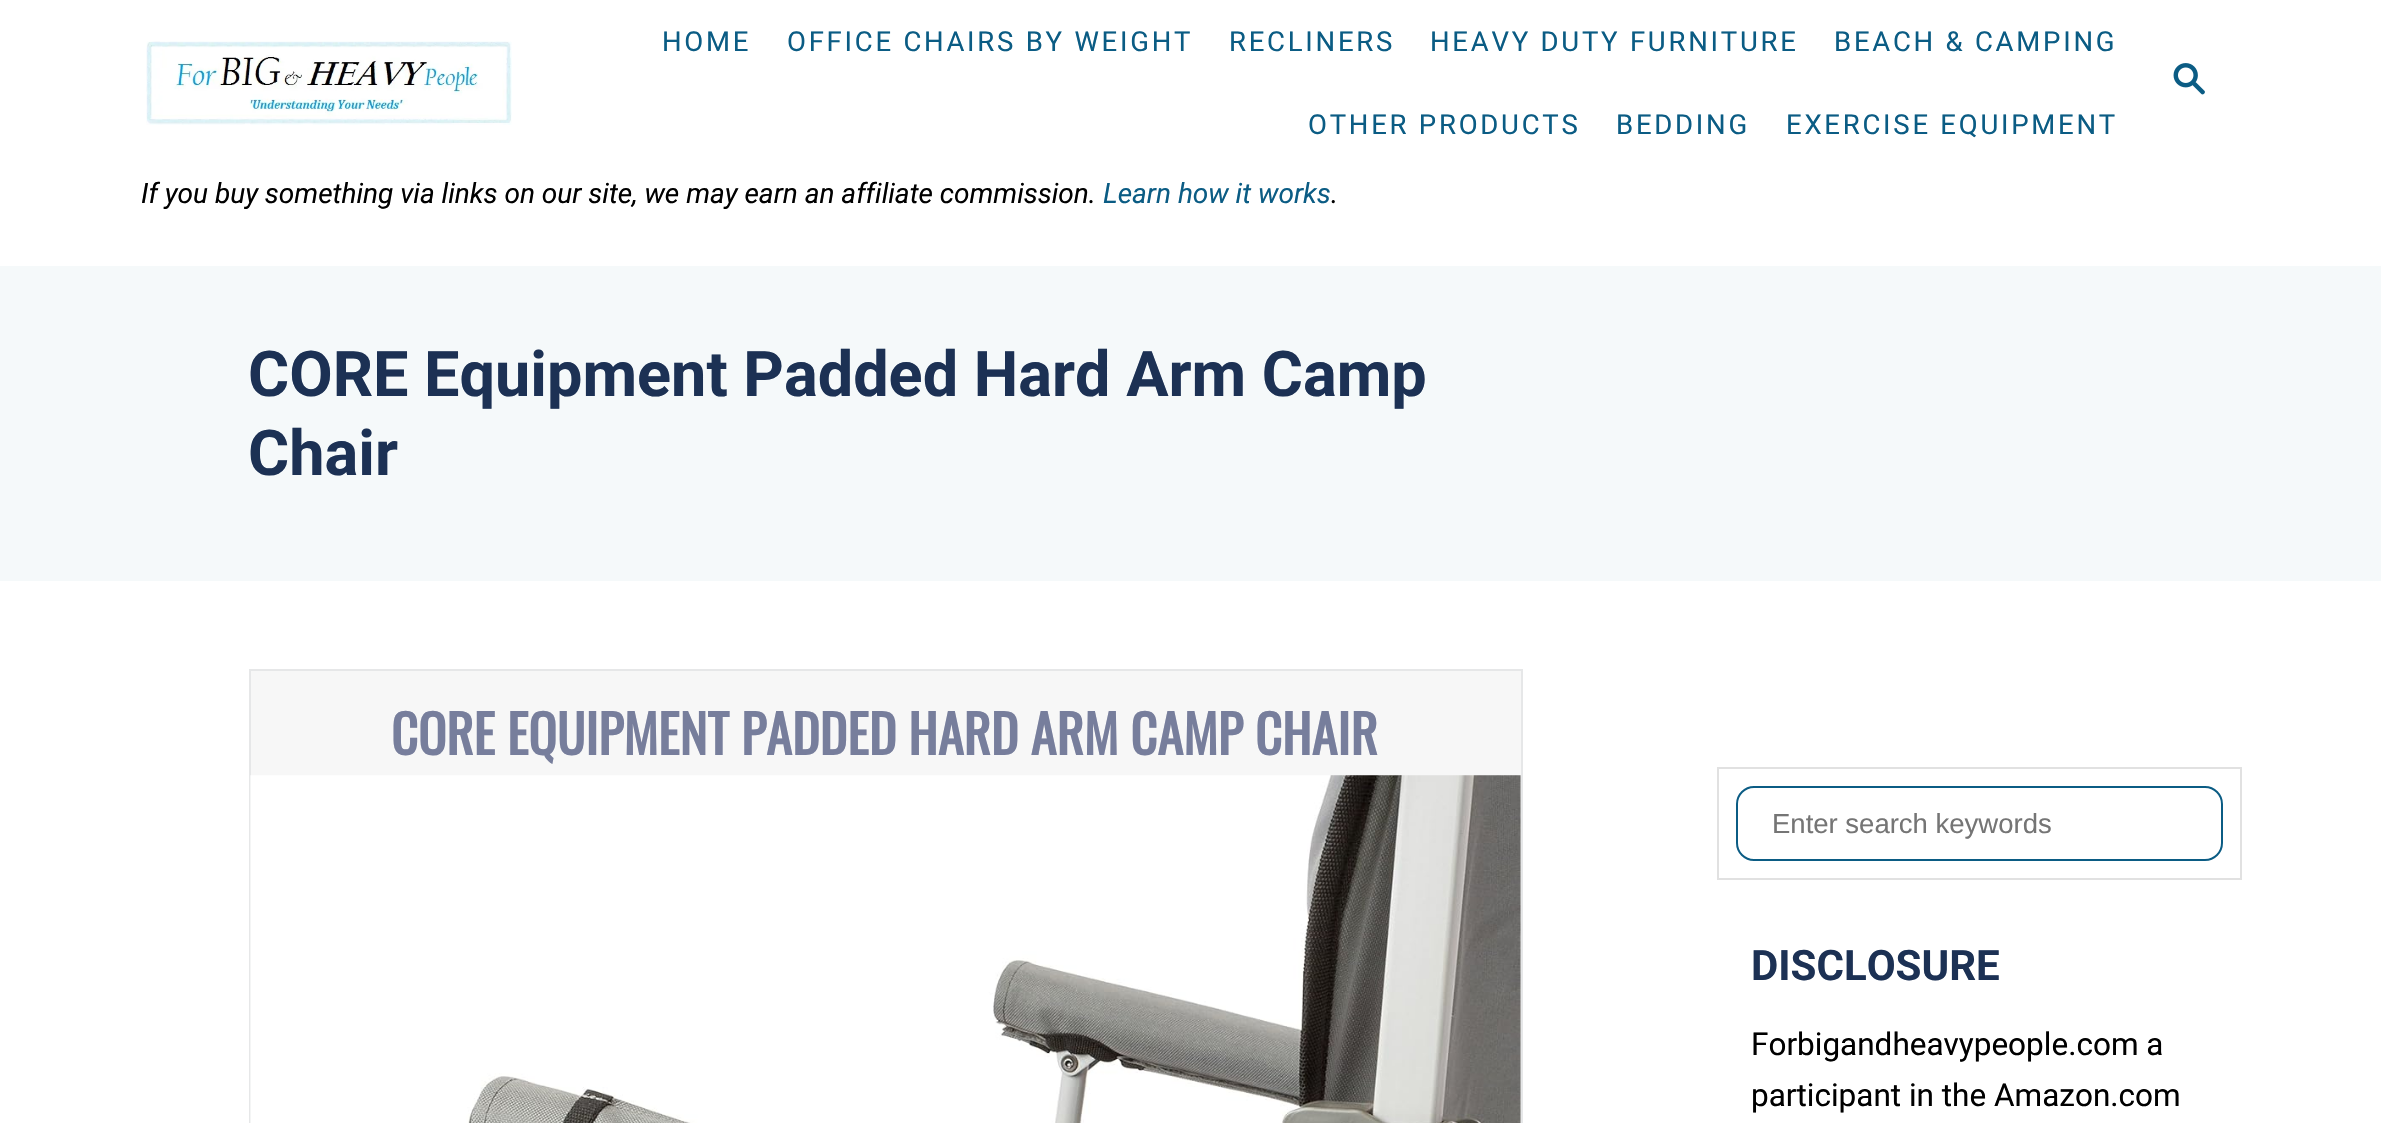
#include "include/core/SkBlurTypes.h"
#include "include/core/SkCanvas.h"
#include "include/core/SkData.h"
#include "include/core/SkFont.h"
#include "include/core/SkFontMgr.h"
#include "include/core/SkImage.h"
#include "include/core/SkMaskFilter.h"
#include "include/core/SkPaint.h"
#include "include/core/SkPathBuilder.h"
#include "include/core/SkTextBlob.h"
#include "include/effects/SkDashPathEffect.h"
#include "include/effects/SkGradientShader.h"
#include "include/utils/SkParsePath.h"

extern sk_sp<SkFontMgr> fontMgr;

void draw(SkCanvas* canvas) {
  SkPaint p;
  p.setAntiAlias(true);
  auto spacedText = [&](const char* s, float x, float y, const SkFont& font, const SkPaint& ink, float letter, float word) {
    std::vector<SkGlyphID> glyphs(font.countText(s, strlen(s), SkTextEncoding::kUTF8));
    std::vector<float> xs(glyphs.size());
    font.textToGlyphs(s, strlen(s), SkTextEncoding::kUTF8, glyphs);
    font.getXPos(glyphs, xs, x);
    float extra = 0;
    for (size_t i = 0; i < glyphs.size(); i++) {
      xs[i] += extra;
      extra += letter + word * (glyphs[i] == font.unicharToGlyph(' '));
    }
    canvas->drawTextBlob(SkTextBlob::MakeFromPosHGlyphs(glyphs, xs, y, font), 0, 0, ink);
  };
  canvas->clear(SK_ColorWHITE);
  canvas->drawImageRect(SkImages::DeferredFromEncodedData(SkData::MakeFromFileName("images/1.png")), SkRect::MakeLTRB(146, 41, 512, 125), SkSamplingOptions());
  canvas->drawImageRect(SkImages::DeferredFromEncodedData(SkData::MakeFromFileName("images/2.png")), SkRect::MakeLTRB(2173, 63, 2205, 95), SkSamplingOptions());
  p.setColor(SkColorSetRGB(245, 249, 250));
  canvas->drawRect(SkRect::MakeLTRB(1523, 266, 2381, 581), p);
  canvas->drawRect(SkRect::MakeLTRB(0, 266, 1523, 581), p);
  p.setColor(SkColorSetRGB(247, 247, 247));
  canvas->drawRect(SkRect::MakeLTRB(250, 670, 1522, 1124), p);
  p.setStyle(SkPaint::kStroke_Style);
  p.setStrokeWidth(2);
  p.setColor(SkColorSetRGB(230, 231, 232));
  canvas->drawRect(SkRect::MakeLTRB(250, 670, 1522, 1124), p);
  canvas->drawImageRect(SkImages::DeferredFromEncodedData(SkData::MakeFromFileName("images/3.png")), SkRect::MakeLTRB(250, 775, 1521, 1123), SkSamplingOptions());
  p.setColor(SkColorSetRGB(225, 225, 225));
  canvas->drawRect(SkRect::MakeLTRB(1718, 768, 2241, 879), p);
  p.setColor(SkColorSetRGB(11, 92, 132));
  canvas->drawRoundRect(SkRect::MakeLTRB(1737, 787, 2222, 860), 17, 17, p);
  SkFont font1(fontMgr->matchFamilyStyle("Roboto", SkFontStyle::Normal()), 27.5f);
  font1.setSubpixel(true);
  p.setStyle(SkPaint::kFill_Style);
  spacedText("HOME", 662, 51, font1, p, 2.75f, 0);
  spacedText("OFFICE CHAIRS BY WEIGHT", 787, 51, font1, p, 2.75f, 0);
  spacedText("RECLINERS", 1229, 51, font1, p, 2.75f, 0);
  spacedText("HEAVY DUTY FURNITURE", 1430, 51, font1, p, 2.75f, 0);
  spacedText("BEACH & CAMPING", 1834, 51, font1, p, 2.75f, 0);
  spacedText("OTHER PRODUCTS", 1308, 134, font1, p, 2.75f, 0);
  spacedText("BEDDING", 1616, 134, font1, p, 2.75f, 0);
  spacedText("EXERCISE EQUIPMENT", 1786, 134, font1, p, 2.75f, 0);
  SkFont font2(fontMgr->matchFamilyStyle("Roboto", SkFontStyle::Italic()), 28);
  font2.setSubpixel(true);
  p.setColor(SK_ColorBLACK);
  canvas->drawString("If you buy something via links on our site, we may earn an affiliate commission.", 141, 203, font2, p);
  p.setColor(SkColorSetRGB(11, 92, 132));
  canvas->drawString("Learn how it works", 1103, 203, font2, p);
  p.setColor(SK_ColorBLACK);
  canvas->drawString(".", 1331, 203, font2, p);
  SkFont font3(fontMgr->matchFamilyStyle("Roboto", SkFontStyle::Bold()), 63);
  font3.setSubpixel(true);
  p.setColor(SkColorSetRGB(28, 49, 84));
  canvas->drawString("CORE Equipment Padded Hard Arm Camp", 248, 396, font3, p);
  canvas->drawString("Chair", 248, 475, font3, p);
  SkFont font4(fontMgr->matchFamilyStyle("Oswald", SkFontStyle::Bold()), 52.5f);
  font4.setSubpixel(true);
  p.setColor(SkColorSetRGB(119, 126, 156));
  canvas->drawString("CORE EQUIPMENT PADDED HARD ARM CAMP CHAIR", 391, 755, font4, p);
  SkFont font5(fontMgr->matchFamilyStyle("Liberation Sans", SkFontStyle::Normal()), 27.5f);
  font5.setSubpixel(true);
  p.setColor(SkColorSetRGB(117, 117, 117));
  canvas->drawString("Enter search keywords", 1772, 833, font5, p);
  SkFont font6(fontMgr->matchFamilyStyle("Roboto", SkFontStyle::Bold()), 42);
  font6.setSubpixel(true);
  p.setColor(SkColorSetRGB(28, 49, 84));
  canvas->drawString("DISCLOSURE", 1751, 980, font6, p);
  SkFont font7(fontMgr->matchFamilyStyle("Roboto", SkFontStyle::Normal()), 31.5f);
  font7.setSubpixel(true);
  p.setColor(SK_ColorBLACK);
  canvas->drawString("Forbigandheavypeople.com a", 1751, 1055, font7, p);
  canvas->drawString("participant in the Amazon.com", 1751, 1106, font7, p);
}
